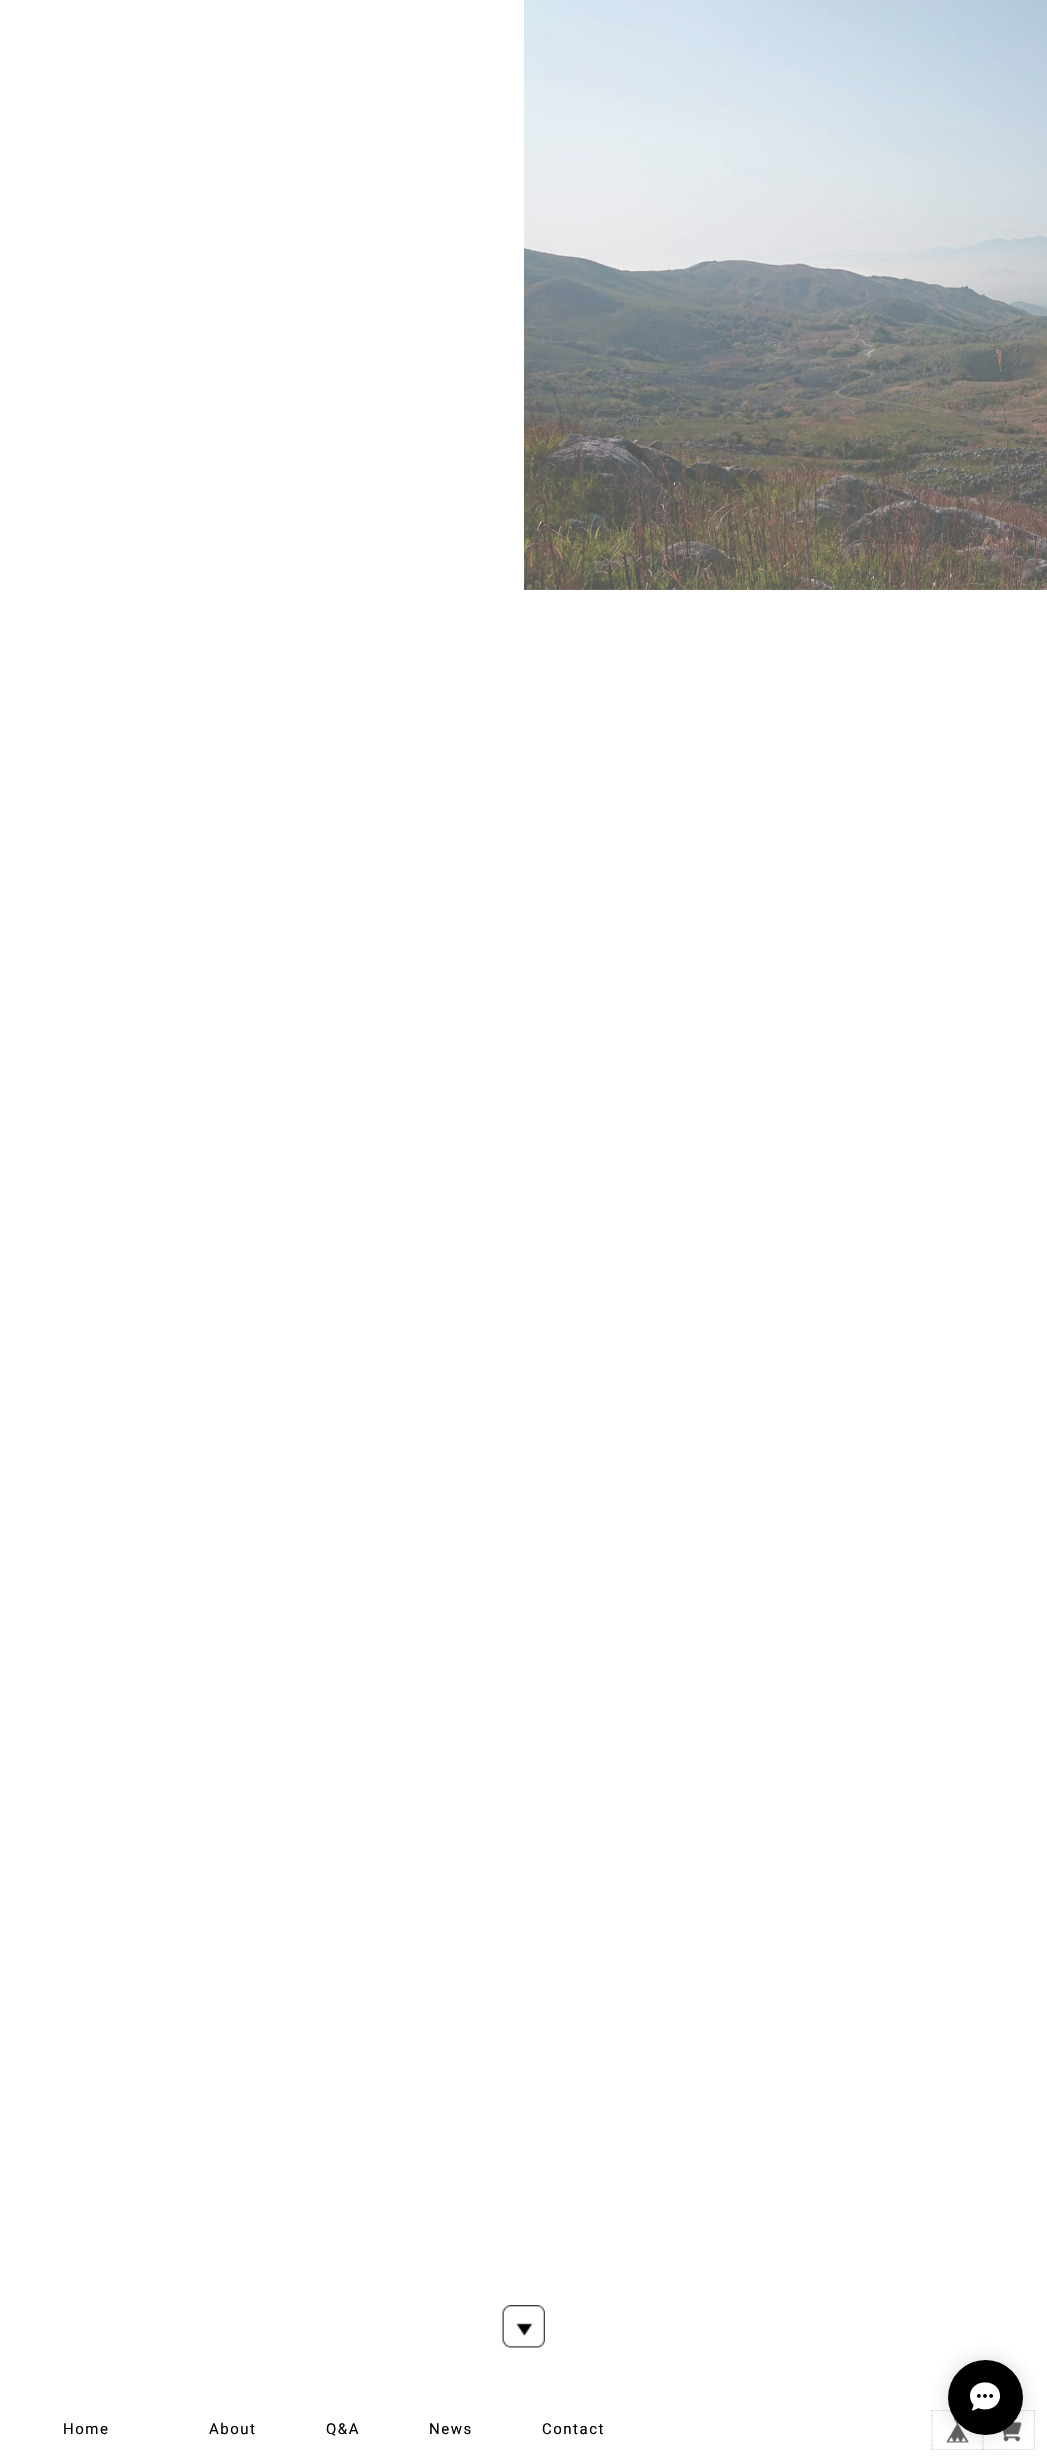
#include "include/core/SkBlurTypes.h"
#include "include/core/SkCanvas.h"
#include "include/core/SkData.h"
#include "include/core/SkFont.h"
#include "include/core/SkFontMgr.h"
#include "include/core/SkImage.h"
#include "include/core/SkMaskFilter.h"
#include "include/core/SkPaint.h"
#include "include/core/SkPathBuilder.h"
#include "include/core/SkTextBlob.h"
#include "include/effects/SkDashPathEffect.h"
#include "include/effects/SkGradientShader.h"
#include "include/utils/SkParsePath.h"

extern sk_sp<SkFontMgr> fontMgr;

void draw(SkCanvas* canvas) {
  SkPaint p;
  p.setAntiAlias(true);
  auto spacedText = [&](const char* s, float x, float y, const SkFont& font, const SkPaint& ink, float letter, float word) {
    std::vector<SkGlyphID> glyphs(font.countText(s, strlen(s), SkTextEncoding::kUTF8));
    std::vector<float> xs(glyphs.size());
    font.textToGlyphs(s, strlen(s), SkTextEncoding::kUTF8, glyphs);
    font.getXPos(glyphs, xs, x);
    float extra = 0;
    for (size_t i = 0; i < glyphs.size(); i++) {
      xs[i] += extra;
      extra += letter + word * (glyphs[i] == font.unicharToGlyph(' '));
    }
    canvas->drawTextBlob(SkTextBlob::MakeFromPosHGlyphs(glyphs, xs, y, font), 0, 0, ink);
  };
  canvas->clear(SK_ColorWHITE);
  canvas->drawImageRect(SkImages::DeferredFromEncodedData(SkData::MakeFromFileName("images/1.png")), SkRect::MakeLTRB(524, 0, 1047, 590), SkSamplingOptions());
  canvas->drawImageRect(SkImages::DeferredFromEncodedData(SkData::MakeFromFileName("images/2.png")), SkRect::MakeLTRB(502, 2305, 545, 2348), SkSamplingOptions());
  p.setStyle(SkPaint::kStroke_Style);
  p.setStrokeWidth(1.2f);
  p.setColor(SkColorSetRGB(204, 204, 204));
  p.setPathEffect(SkDashPathEffect::Make({{1.25f, 1.25f}}, 0));
  canvas->drawPath(SkPathBuilder().moveTo(931, 2410.5f).lineTo(982.5f, 2410.5f).moveTo(931, 2449.5f).lineTo(982.5f, 2449.5f).moveTo(932, 2410).lineTo(932, 2450).detach(), p);
  p.setPathEffect(nullptr);
  canvas->drawImageRect(SkImages::DeferredFromEncodedData(SkData::MakeFromFileName("images/3.png")), SkRect::MakeLTRB(946, 2418, 969, 2443), SkSamplingOptions());
  p.setPathEffect(SkDashPathEffect::Make({{1.25f, 1.25f}}, 0));
  canvas->drawPath(SkPathBuilder().moveTo(982.5f, 2410.5f).lineTo(1035, 2410.5f).moveTo(1034.5f, 2410).lineTo(1034.5f, 2450).moveTo(982.5f, 2449.5f).lineTo(1035, 2449.5f).moveTo(983, 2410).lineTo(983, 2450).detach(), p);
  p.setPathEffect(nullptr);
  canvas->drawImageRect(SkImages::DeferredFromEncodedData(SkData::MakeFromFileName("images/4.png")), SkRect::MakeLTRB(1002, 2421, 1022, 2442), SkSamplingOptions());
  p.setStyle(SkPaint::kFill_Style);
  p.setColor(SkColorSetARGB(51, 51, 66, 88));
  p.setMaskFilter(SkMaskFilter::MakeBlur(kNormal_SkBlurStyle, 9.5f));
  canvas->drawRoundRect(SkRect::MakeLTRB(948, 2360, 1023, 2435), 37.5f, 37.5f, p);
  p.setMaskFilter(nullptr);
  p.setColor(SK_ColorBLACK);
  canvas->drawCircle(985.5f, 2397.5f, 37.5f, p);
  canvas->drawImageRect(SkImages::DeferredFromEncodedData(SkData::MakeFromFileName("images/5.png")), SkRect::MakeLTRB(970, 2382, 1000, 2411), SkSamplingOptions());
  SkFont font1(fontMgr->matchFamilyStyle("Roboto", SkFontStyle::Normal()), 15);
  font1.setSubpixel(true);
  spacedText("Home", 63, 2434, font1, p, 1.5f, 0);
  spacedText("About", 209, 2434, font1, p, 1.5f, 0);
  spacedText("Q&A", 326, 2434, font1, p, 1.5f, 0);
  spacedText("News", 429, 2434, font1, p, 1.5f, 0);
  spacedText("Contact", 542, 2434, font1, p, 1.5f, 0);
}
